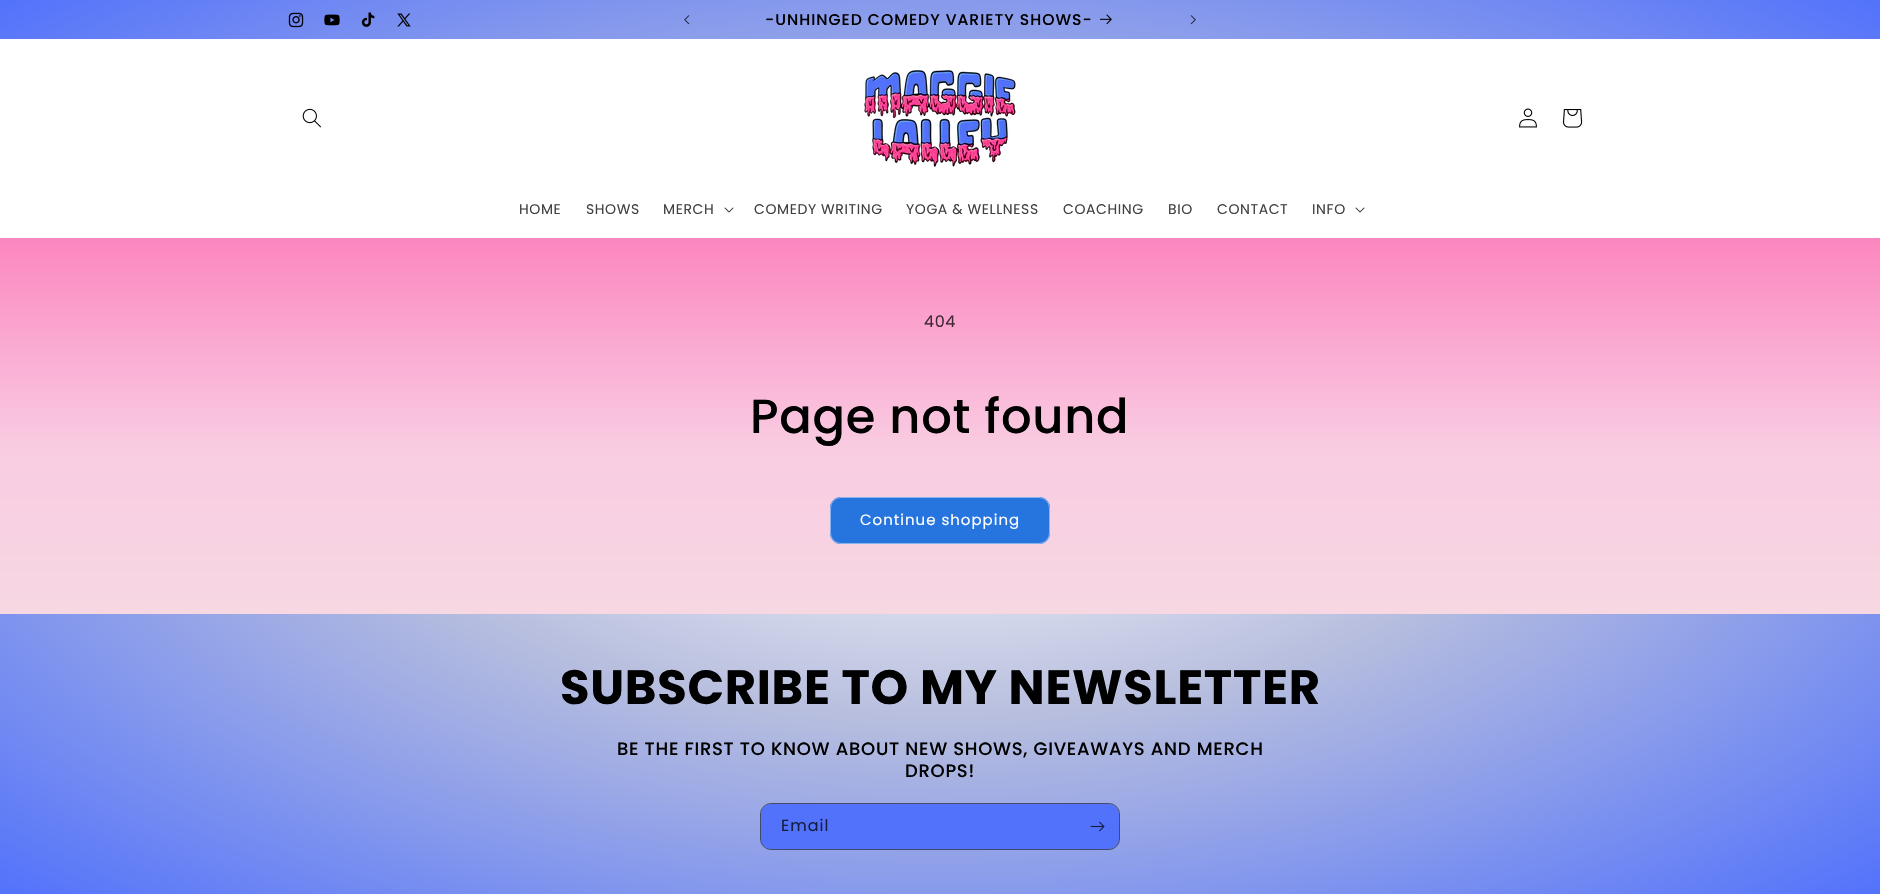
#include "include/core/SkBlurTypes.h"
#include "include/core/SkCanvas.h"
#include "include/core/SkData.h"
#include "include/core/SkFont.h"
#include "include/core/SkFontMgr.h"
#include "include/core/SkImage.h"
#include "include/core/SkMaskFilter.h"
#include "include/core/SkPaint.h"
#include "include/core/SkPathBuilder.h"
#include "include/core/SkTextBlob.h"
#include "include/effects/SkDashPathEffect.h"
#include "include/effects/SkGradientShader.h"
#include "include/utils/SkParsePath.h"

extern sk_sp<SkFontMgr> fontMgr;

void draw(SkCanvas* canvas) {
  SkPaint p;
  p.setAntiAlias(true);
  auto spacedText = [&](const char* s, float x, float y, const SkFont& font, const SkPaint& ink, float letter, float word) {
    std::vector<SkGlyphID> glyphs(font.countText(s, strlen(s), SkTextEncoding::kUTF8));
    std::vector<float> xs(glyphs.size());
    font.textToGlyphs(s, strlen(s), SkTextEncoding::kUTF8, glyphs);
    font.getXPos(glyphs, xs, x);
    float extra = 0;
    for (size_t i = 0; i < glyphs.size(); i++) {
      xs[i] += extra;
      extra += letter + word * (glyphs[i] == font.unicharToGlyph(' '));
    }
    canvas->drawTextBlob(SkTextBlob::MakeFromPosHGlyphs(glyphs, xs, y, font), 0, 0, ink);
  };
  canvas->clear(SK_ColorWHITE);
  {
    const SkColor colors[] = {SkColorSetRGB(255, 55, 152), SkColorSetRGB(249, 204, 226), SkColorSetRGB(241, 235, 226)};
    const float stops[] = {0, 0.5f, 1};
    const SkPoint ends[] = {{940, 0}, {940, 896}};
    p.setShader(SkGradientShader::MakeLinear(ends, colors, stops, 3, SkTileMode::kClamp));
    p.setAlpha(255);
  }
  canvas->drawRect(SkRect::MakeLTRB(0, 238, 1880, 614), p);
  {
    const SkColor colors[] = {SK_ColorWHITE, SkColorSetRGB(183, 190, 222), SkColorSetRGB(82, 114, 251)};
    const float stops[] = {0, 0.43f, 1};
    SkMatrix m = SkMatrix::Translate(940, 448).preScale(1329, 634);
    p.setShader(SkGradientShader::MakeRadial({0, 0}, 1, colors, stops, 3, SkTileMode::kClamp, 0, &m));
    p.setAlpha(255);
  }
  canvas->drawRect(SkRect::MakeLTRB(0, 0, 1880, 39), p);
  canvas->drawImageRect(SkImages::DeferredFromEncodedData(SkData::MakeFromFileName("images/1.png")), SkRect::MakeLTRB(288, 12, 304, 28), SkSamplingOptions());
  canvas->drawImageRect(SkImages::DeferredFromEncodedData(SkData::MakeFromFileName("images/2.png")), SkRect::MakeLTRB(324, 14, 340, 26), SkSamplingOptions());
  canvas->drawImageRect(SkImages::DeferredFromEncodedData(SkData::MakeFromFileName("images/3.png")), SkRect::MakeLTRB(361, 12, 375, 27), SkSamplingOptions());
  canvas->drawImageRect(SkImages::DeferredFromEncodedData(SkData::MakeFromFileName("images/4.png")), SkRect::MakeLTRB(397, 13, 411, 27), SkSamplingOptions());
  canvas->drawImageRect(SkImages::DeferredFromEncodedData(SkData::MakeFromFileName("images/5.png")), SkRect::MakeLTRB(684, 15, 690, 25), SkSamplingOptions());
  canvas->drawImageRect(SkImages::DeferredFromEncodedData(SkData::MakeFromFileName("images/6.png")), SkRect::MakeLTRB(1100, 14, 1112, 25), SkSamplingOptions());
  canvas->drawImageRect(SkImages::DeferredFromEncodedData(SkData::MakeFromFileName("images/7.png")), SkRect::MakeLTRB(1190, 15, 1196, 25), SkSamplingOptions());
  canvas->drawImageRect(SkImages::DeferredFromEncodedData(SkData::MakeFromFileName("images/8.png")), SkRect::MakeLTRB(302, 108, 321, 128), SkSamplingOptions());
  canvas->drawImageRect(SkImages::DeferredFromEncodedData(SkData::MakeFromFileName("images/9.png")), SkRect::MakeLTRB(864, 70, 1016, 167), SkSamplingOptions());
  canvas->drawImageRect(SkImages::DeferredFromEncodedData(SkData::MakeFromFileName("images/10.png")), SkRect::MakeLTRB(1519, 108, 1537, 128), SkSamplingOptions());
  canvas->drawImageRect(SkImages::DeferredFromEncodedData(SkData::MakeFromFileName("images/11.png")), SkRect::MakeLTRB(1563, 109, 1583, 128), SkSamplingOptions());
  canvas->drawImageRect(SkImages::DeferredFromEncodedData(SkData::MakeFromFileName("images/12.png")), SkRect::MakeLTRB(724, 207, 734, 213), SkSamplingOptions());
  canvas->drawImageRect(SkImages::DeferredFromEncodedData(SkData::MakeFromFileName("images/12.png")), SkRect::MakeLTRB(1355, 207, 1365, 213), SkSamplingOptions());
  p.setShader(nullptr);
  p.setColor(SkColorSetRGB(38, 116, 222));
  canvas->drawRoundRect(SkRect::MakeLTRB(830, 497, 1050, 544), 11, 11, p);
  p.setStyle(SkPaint::kStroke_Style);
  p.setStrokeWidth(1);
  canvas->drawRoundRect(SkRect::MakeLTRB(830.5f, 497.5f, 1049.5f, 543.5f), 10.5f, 10.5f, p);
  p.setColor(SkColorSetARGB(115, 255, 255, 255));
  canvas->drawRoundRect(SkRect::MakeLTRB(830.5f, 497.5f, 1049.5f, 543.5f), 10.5f, 10.5f, p);
  p.setStyle(SkPaint::kFill_Style);
  {
    const SkColor colors[] = {SK_ColorWHITE, SkColorSetRGB(183, 190, 222), SkColorSetRGB(82, 114, 251)};
    const float stops[] = {0, 0.43f, 1};
    SkMatrix m = SkMatrix::Translate(940, 448).preScale(1329, 634);
    p.setShader(SkGradientShader::MakeRadial({0, 0}, 1, colors, stops, 3, SkTileMode::kClamp, 0, &m));
    p.setAlpha(255);
  }
  canvas->drawRect(SkRect::MakeLTRB(0, 614, 1880, 894), p);
  p.setShader(nullptr);
  p.setColor(SkColorSetRGB(82, 114, 251));
  canvas->drawRoundRect(SkRect::MakeLTRB(761, 804, 1119, 849), 10, 10, p);
  p.setStyle(SkPaint::kStroke_Style);
  p.setColor(SkColorSetARGB(140, 0, 0, 0));
  canvas->drawRoundRect(SkRect::MakeLTRB(760.5f, 803.5f, 1119.5f, 849.5f), 10.5f, 10.5f, p);
  canvas->drawImageRect(SkImages::DeferredFromEncodedData(SkData::MakeFromFileName("images/13.png")), SkRect::MakeLTRB(1090, 821, 1105, 832), SkSamplingOptions());
  SkFont font1(fontMgr->matchFamilyStyle("Poppins", SkFontStyle(500, SkFontStyle::kNormal_Width, SkFontStyle::kUpright_Slant)), 15.6f);
  font1.setSubpixel(true);
  p.setStyle(SkPaint::kFill_Style);
  p.setColor(SK_ColorBLACK);
  spacedText("-UNHINGED COMEDY VARIETY SHOWS-", 765, 25, font1, p, 1, 0);
  SkFont font2(fontMgr->matchFamilyStyle("Poppins", SkFontStyle::Normal()), 14);
  font2.setSubpixel(true);
  p.setColor(SkColorSetRGB(64, 64, 64));
  spacedText("HOME", 519, 214, font2, p, 0.6f, 0);
  spacedText("SHOWS", 586, 214, font2, p, 0.6f, 0);
  spacedText("MERCH", 663, 214, font2, p, 0.6f, 0);
  spacedText("COMEDY WRITING", 754, 214, font2, p, 0.6f, 0);
  spacedText("YOGA & WELLNESS", 906, 214, font2, p, 0.6f, 0);
  spacedText("COACHING", 1063, 214, font2, p, 0.6f, 0);
  spacedText("BIO", 1168, 214, font2, p, 0.6f, 0);
  spacedText("CONTACT", 1217, 214, font2, p, 0.6f, 0);
  spacedText("INFO", 1312, 214, font2, p, 0.6f, 0);
  SkFont font3(fontMgr->matchFamilyStyle("Poppins", SkFontStyle::Normal()), 16);
  font3.setSubpixel(true);
  p.setColor(SkColorSetRGB(63, 40, 51));
  spacedText("404", 924, 327, font3, p, 0.6f, 0);
  SkFont font4(fontMgr->matchFamilyStyle("Poppins", SkFontStyle(500, SkFontStyle::kNormal_Width, SkFontStyle::kUpright_Slant)), 48);
  font4.setSubpixel(true);
  p.setColor(SK_ColorBLACK);
  spacedText("Page not found", 750, 433, font4, p, 0.72f, 0);
  SkFont font5(fontMgr->matchFamilyStyle("Poppins", SkFontStyle::Normal()), 15);
  font5.setSubpixel(true);
  p.setColor(SK_ColorWHITE);
  spacedText("Continue shopping", 860, 525, font5, p, 1, 0);
  SkFont font6(fontMgr->matchFamilyStyle("Poppins", SkFontStyle::Bold()), 48);
  font6.setSubpixel(true);
  p.setColor(SK_ColorBLACK);
  spacedText("SUBSCRIBE TO MY NEWSLETTER", 560, 704, font6, p, 0.72f, 0);
  SkFont font7(fontMgr->matchFamilyStyle("Poppins", SkFontStyle(500, SkFontStyle::kNormal_Width, SkFontStyle::kUpright_Slant)), 18);
  font7.setSubpixel(true);
  spacedText("BE THE FIRST TO KNOW ABOUT NEW SHOWS, GIVEAWAYS AND MERCH", 617, 755, font7, p, 0.72f, 0);
  spacedText("DROPS!", 905, 777, font7, p, 0.72f, 0);
  p.setColor(SkColorSetRGB(21, 29, 63));
  spacedText("Email", 781, 831, font3, p, 1, 0);
}
